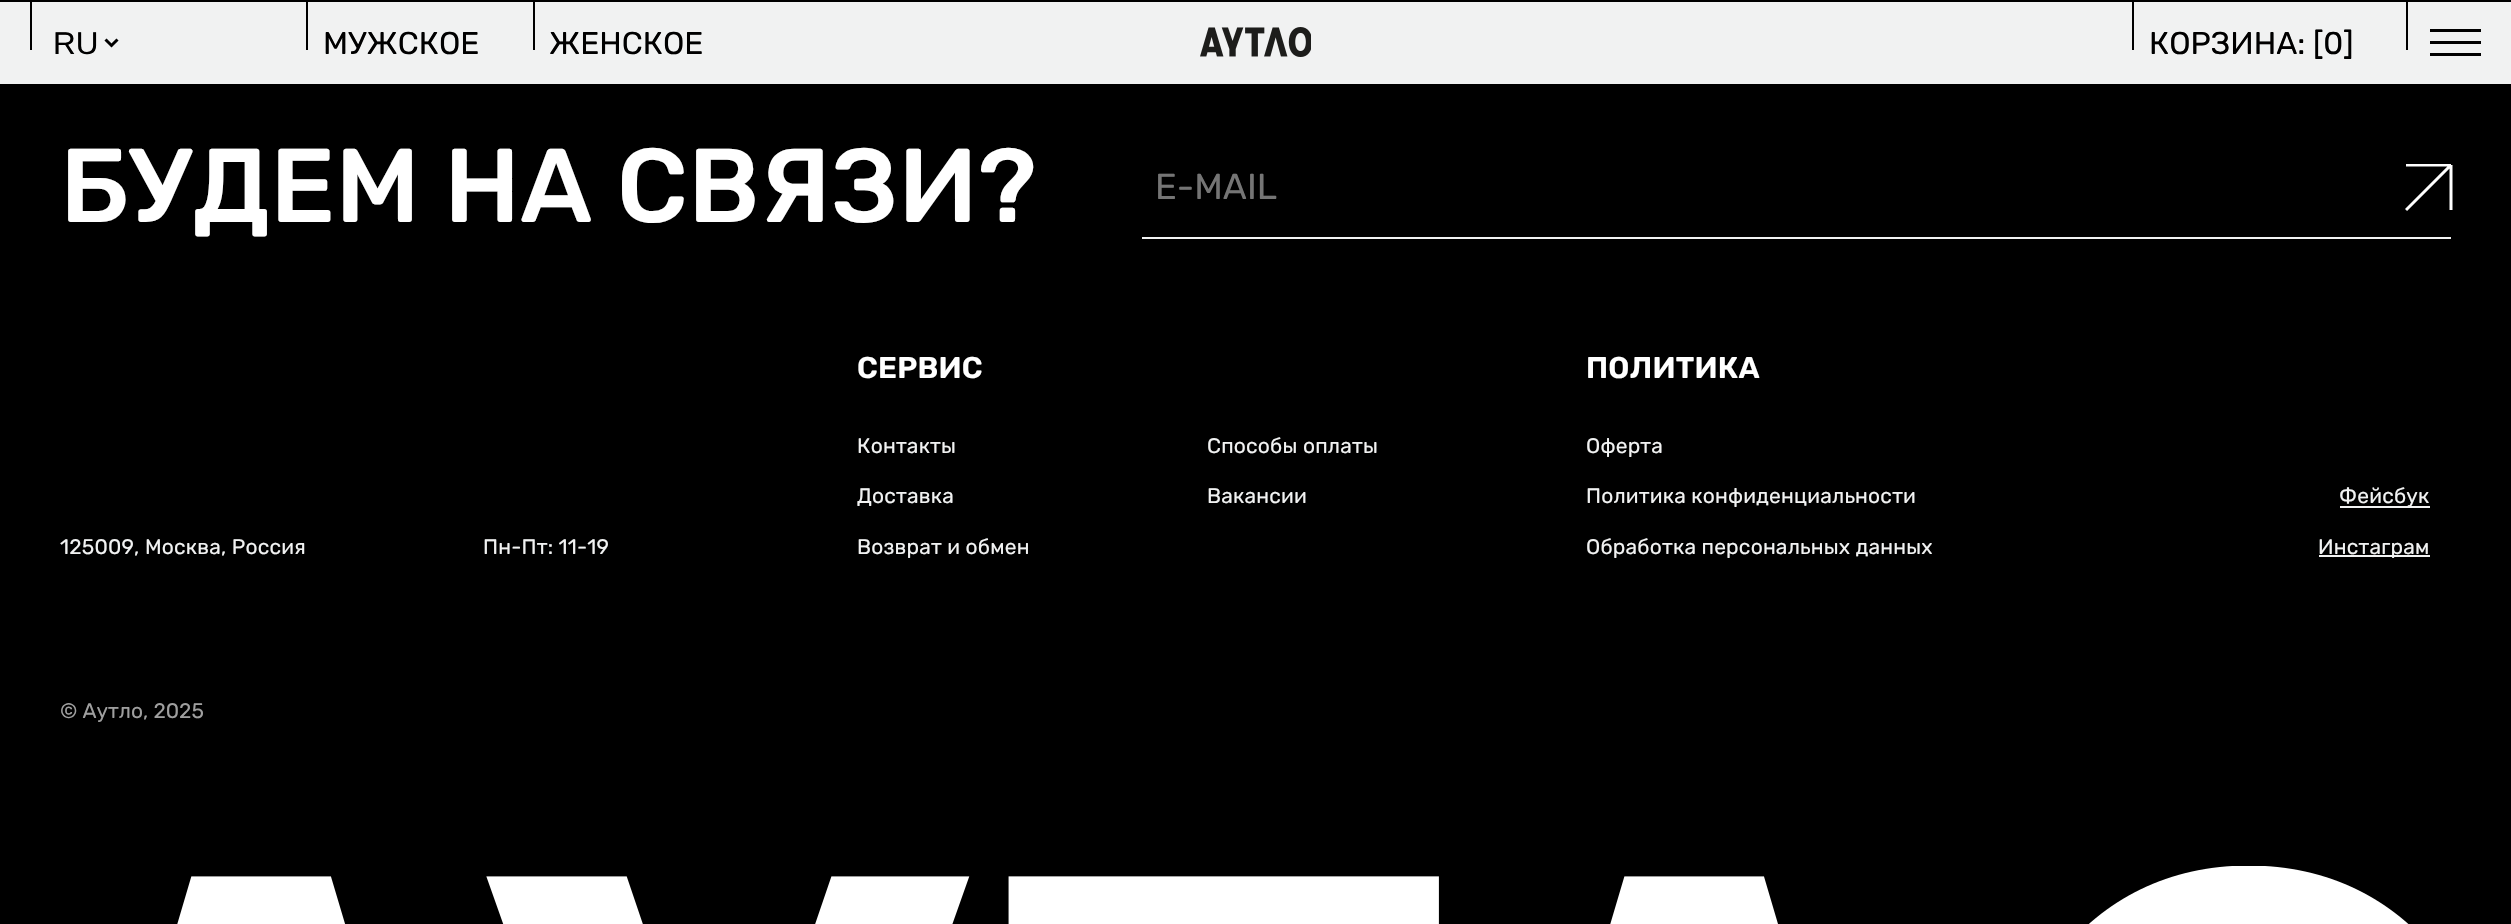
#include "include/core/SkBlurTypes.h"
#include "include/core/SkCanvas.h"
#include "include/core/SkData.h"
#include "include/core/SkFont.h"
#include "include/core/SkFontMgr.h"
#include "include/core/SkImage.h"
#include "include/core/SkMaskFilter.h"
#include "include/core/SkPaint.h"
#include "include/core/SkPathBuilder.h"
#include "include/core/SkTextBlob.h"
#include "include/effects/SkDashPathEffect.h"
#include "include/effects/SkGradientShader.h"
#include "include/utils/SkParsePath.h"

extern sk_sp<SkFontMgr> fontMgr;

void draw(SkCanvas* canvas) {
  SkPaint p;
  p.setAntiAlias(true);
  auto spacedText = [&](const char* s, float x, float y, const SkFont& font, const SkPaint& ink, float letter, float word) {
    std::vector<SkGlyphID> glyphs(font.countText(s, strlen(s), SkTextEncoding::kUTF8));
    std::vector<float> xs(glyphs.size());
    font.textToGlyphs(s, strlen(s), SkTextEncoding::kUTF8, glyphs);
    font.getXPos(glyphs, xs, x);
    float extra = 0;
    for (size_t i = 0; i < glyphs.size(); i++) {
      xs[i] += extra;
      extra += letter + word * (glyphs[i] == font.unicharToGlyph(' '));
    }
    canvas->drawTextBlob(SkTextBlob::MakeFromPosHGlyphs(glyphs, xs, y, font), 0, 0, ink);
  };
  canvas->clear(SK_ColorBLACK);
  p.setColor(SkColorSetRGB(241, 242, 242));
  canvas->drawRect(SkRect::MakeLTRB(0, 2, 2511, 84), p);
  p.setColor(SK_ColorBLACK);
  canvas->drawRect(SkRect::MakeLTRB(30, 2, 32, 50), p);
  p.setStyle(SkPaint::kStroke_Style);
  p.setStrokeWidth(3);
  canvas->drawPath(SkPathBuilder().moveTo(105.5f, 39.5f).lineTo(111.5f, 45.5f).lineTo(117.5f, 39.5f).detach(), p);
  p.setStyle(SkPaint::kFill_Style);
  canvas->drawRect(SkRect::MakeLTRB(306, 2, 308, 50), p);
  canvas->drawRect(SkRect::MakeLTRB(533, 2, 535, 50), p);
  canvas->drawImageRect(SkImages::DeferredFromEncodedData(SkData::MakeFromFileName("images/1.png")), SkRect::MakeLTRB(1200, 27, 1311, 57), SkSamplingOptions());
  canvas->drawRect(SkRect::MakeLTRB(2132, 2, 2134, 50), p);
  canvas->drawRect(SkRect::MakeLTRB(2406, 2, 2408, 50), p);
  canvas->drawRect(SkRect::MakeLTRB(2430, 29, 2481, 32), p);
  canvas->drawRect(SkRect::MakeLTRB(2430, 41, 2481, 44), p);
  canvas->drawRect(SkRect::MakeLTRB(2430, 53, 2481, 56), p);
  p.setColor(SkColorSetRGB(241, 242, 242));
  canvas->drawRect(SkRect::MakeLTRB(1142, 237, 2451, 239), p);
  canvas->save();
  canvas->clipRect(SkRect::MakeLTRB(2405, 164, 2453, 212));
  p.setStyle(SkPaint::kStroke_Style);
  p.setColor(SK_ColorWHITE);
  canvas->drawPath(SkPathBuilder().moveTo(2406, 165).lineTo(2451, 165).moveTo(2451, 165).lineTo(2451, 210).moveTo(2451, 165).lineTo(2406, 210).detach(), p);
  canvas->restore();
  p.setStyle(SkPaint::kFill_Style);
  p.setColor(SkColorSetRGB(241, 242, 242));
  canvas->drawRect(SkRect::MakeLTRB(2340, 506, 2430, 508), p);
  canvas->drawRect(SkRect::MakeLTRB(2319, 555, 2430, 557), p);
  canvas->drawImageRect(SkImages::DeferredFromEncodedData(SkData::MakeFromFileName("images/2.png")), SkRect::MakeLTRB(177, 866, 2409, 924), SkSamplingOptions());
  SkFont font1(fontMgr->matchFamilyStyle("Liberation Sans", SkFontStyle::Normal()), 31.5f);
  font1.setSubpixel(true);
  p.setColor(SK_ColorBLACK);
  canvas->drawString("RU", 53, 54, font1, p);
  SkFont font2(fontMgr->matchFamilyStyle("Rubik", SkFontStyle::Normal()), 31.5f);
  font2.setSubpixel(true);
  canvas->drawString("МУЖСКОЕ", 323, 54, font2, p);
  canvas->drawString("ЖЕНСКОЕ", 549, 54, font2, p);
  canvas->drawString("КОРЗИНА: [0]", 2149, 54, font2, p);
  SkFont font3(fontMgr->matchFamilyStyle("Rubik", SkFontStyle(500, SkFontStyle::kNormal_Width, SkFontStyle::kUpright_Slant)), 104.5f);
  font3.setSubpixel(true);
  p.setColor(SK_ColorWHITE);
  canvas->drawString("БУДЕМ НА СВЯЗИ?", 60, 222, font3, p);
  SkFont font4(fontMgr->matchFamilyStyle("Rubik", SkFontStyle::Normal()), 36);
  font4.setSubpixel(true);
  p.setColor(SkColorSetRGB(117, 117, 117));
  canvas->drawString("E-MAIL", 1155, 199, font4, p);
  SkFont font5(fontMgr->matchFamilyStyle("Rubik", SkFontStyle::Normal()), 21);
  font5.setSubpixel(true);
  p.setColor(SkColorSetRGB(241, 242, 242));
  spacedText("125009, Москва, Россия", 60, 554, font5, p, 0.2f, 0);
  spacedText("Пн-Пт: 11-19", 483, 554, font5, p, 0.2f, 0);
  SkFont font6(fontMgr->matchFamilyStyle("Rubik", SkFontStyle(600, SkFontStyle::kNormal_Width, SkFontStyle::kUpright_Slant)), 30);
  font6.setSubpixel(true);
  p.setColor(SK_ColorWHITE);
  spacedText("СЕРВИС", 857, 378, font6, p, 0.25f, 0);
  p.setColor(SkColorSetRGB(241, 242, 242));
  spacedText("Контакты", 857, 453, font5, p, 0.2f, 0);
  spacedText("Способы оплаты", 1207, 453, font5, p, 0.2f, 0);
  spacedText("Доставка", 857, 503, font5, p, 0.2f, 0);
  spacedText("Вакансии", 1207, 503, font5, p, 0.2f, 0);
  spacedText("Возврат и обмен", 857, 554, font5, p, 0.2f, 0);
  p.setColor(SK_ColorWHITE);
  spacedText("ПОЛИТИКА", 1586, 378, font6, p, 0.25f, 0);
  p.setColor(SkColorSetRGB(241, 242, 242));
  spacedText("Оферта", 1586, 453, font5, p, 0.2f, 0);
  spacedText("Политика конфиденциальности", 1586, 503, font5, p, 0.2f, 0);
  spacedText("Обработка персональных данных", 1586, 554, font5, p, 0.2f, 0);
  spacedText("Фейсбук", 2339, 503, font5, p, 0.2f, 0);
  spacedText("Инстаграм", 2318, 554, font5, p, 0.2f, 0);
  p.setColor(SkColorSetRGB(159, 159, 159));
  canvas->drawString("© Аутло, 2025", 60, 718, font5, p);
}
